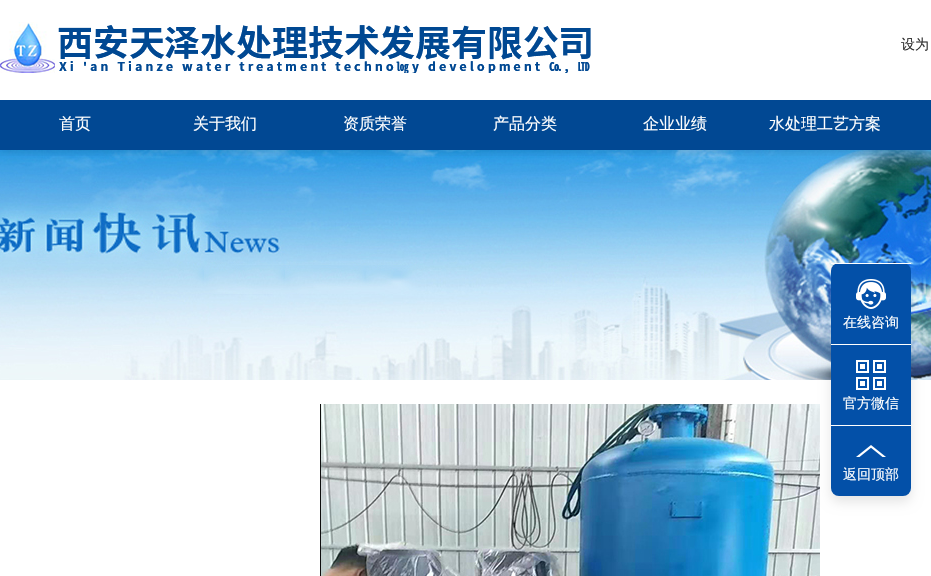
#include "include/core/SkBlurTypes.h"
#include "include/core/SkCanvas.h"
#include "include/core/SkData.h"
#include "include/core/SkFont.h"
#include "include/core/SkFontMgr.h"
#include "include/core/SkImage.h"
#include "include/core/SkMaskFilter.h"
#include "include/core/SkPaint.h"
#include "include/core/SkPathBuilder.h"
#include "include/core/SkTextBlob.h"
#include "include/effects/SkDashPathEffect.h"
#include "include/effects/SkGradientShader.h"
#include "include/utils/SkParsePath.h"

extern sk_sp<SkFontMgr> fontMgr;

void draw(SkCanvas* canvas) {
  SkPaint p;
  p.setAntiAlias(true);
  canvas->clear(SK_ColorWHITE);
  canvas->drawImageRect(SkImages::DeferredFromEncodedData(SkData::MakeFromFileName("images/2.png")), SkRect::MakeLTRB(0, 150, 931, 380), SkSamplingOptions());
  canvas->save();
  canvas->clipRect(SkRect::MakeLTRB(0, 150, 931, 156));
  p.setColor(SkColorSetARGB(38, 0, 0, 0));
  p.setMaskFilter(SkMaskFilter::MakeBlur(kNormal_SkBlurStyle, 5));
  canvas->drawRect(SkRect::MakeLTRB(0, 0, 931, 150), p);
  p.setMaskFilter(nullptr);
  canvas->restore();
  canvas->drawImageRect(SkImages::DeferredFromEncodedData(SkData::MakeFromFileName("images/1.png")), SkRect::MakeLTRB(0, 22, 591, 73), SkSamplingOptions());
  p.setColor(SkColorSetRGB(1, 72, 147));
  canvas->drawRect(SkRect::MakeLTRB(0, 100, 931, 150), p);
  canvas->drawImageRect(SkImages::DeferredFromEncodedData(SkData::MakeFromFileName("images/3.png")), SkRect::MakeLTRB(320, 404, 820, 576), SkSamplingOptions());
  p.setColor(SkColorSetARGB(26, 0, 0, 0));
  p.setMaskFilter(SkMaskFilter::MakeBlur(kNormal_SkBlurStyle, 6));
  canvas->drawRoundRect(SkRect::MakeLTRB(831, 269, 911, 502), 8, 8, p);
  p.setMaskFilter(nullptr);
  p.setColor(SkColorSetRGB(3, 80, 168));
  canvas->drawRoundRect(SkRect::MakeLTRB(831, 263, 911, 496), 8, 8, p);
  canvas->drawImageRect(SkImages::DeferredFromEncodedData(SkData::MakeFromFileName("images/4.png")), SkRect::MakeLTRB(856, 279, 886, 309), SkSamplingOptions());
  p.setColor(SK_ColorWHITE);
  canvas->drawRect(SkRect::MakeLTRB(831, 263, 911, 264), p);
  canvas->drawImageRect(SkImages::DeferredFromEncodedData(SkData::MakeFromFileName("images/5.png")), SkRect::MakeLTRB(856, 360, 886, 390), SkSamplingOptions());
  canvas->drawRect(SkRect::MakeLTRB(831, 344, 911, 345), p);
  canvas->drawImageRect(SkImages::DeferredFromEncodedData(SkData::MakeFromFileName("images/6.png")), SkRect::MakeLTRB(856, 445, 886, 457), SkSamplingOptions());
  canvas->drawRect(SkRect::MakeLTRB(831, 425, 911, 426), p);
  SkFont font1(fontMgr->matchFamilyStyle("WenQuanYi Zen Hei", SkFontStyle(500, SkFontStyle::kNormal_Width, SkFontStyle::kUpright_Slant)), 14);
  font1.setSubpixel(true);
  p.setColor(SkColorSetRGB(51, 51, 51));
  canvas->drawString("设为", 901, 49, font1, p);
  SkFont font2(fontMgr->matchFamilyStyle("WenQuanYi Zen Hei", SkFontStyle(500, SkFontStyle::kNormal_Width, SkFontStyle::kUpright_Slant)), 16);
  font2.setSubpixel(true);
  p.setColor(SK_ColorWHITE);
  canvas->drawString("首页", 59, 129, font2, p);
  canvas->drawString("关于我们", 193, 129, font2, p);
  canvas->drawString("资质荣誉", 343, 129, font2, p);
  canvas->drawString("产品分类", 493, 129, font2, p);
  canvas->drawString("企业业绩", 643, 129, font2, p);
  canvas->drawString("水处理工艺方案", 769, 129, font2, p);
  canvas->drawString("在线咨询", 843, 327, font1, p);
  canvas->drawString("官方微信", 843, 408, font1, p);
  canvas->drawString("返回顶部", 843, 479, font1, p);
}
